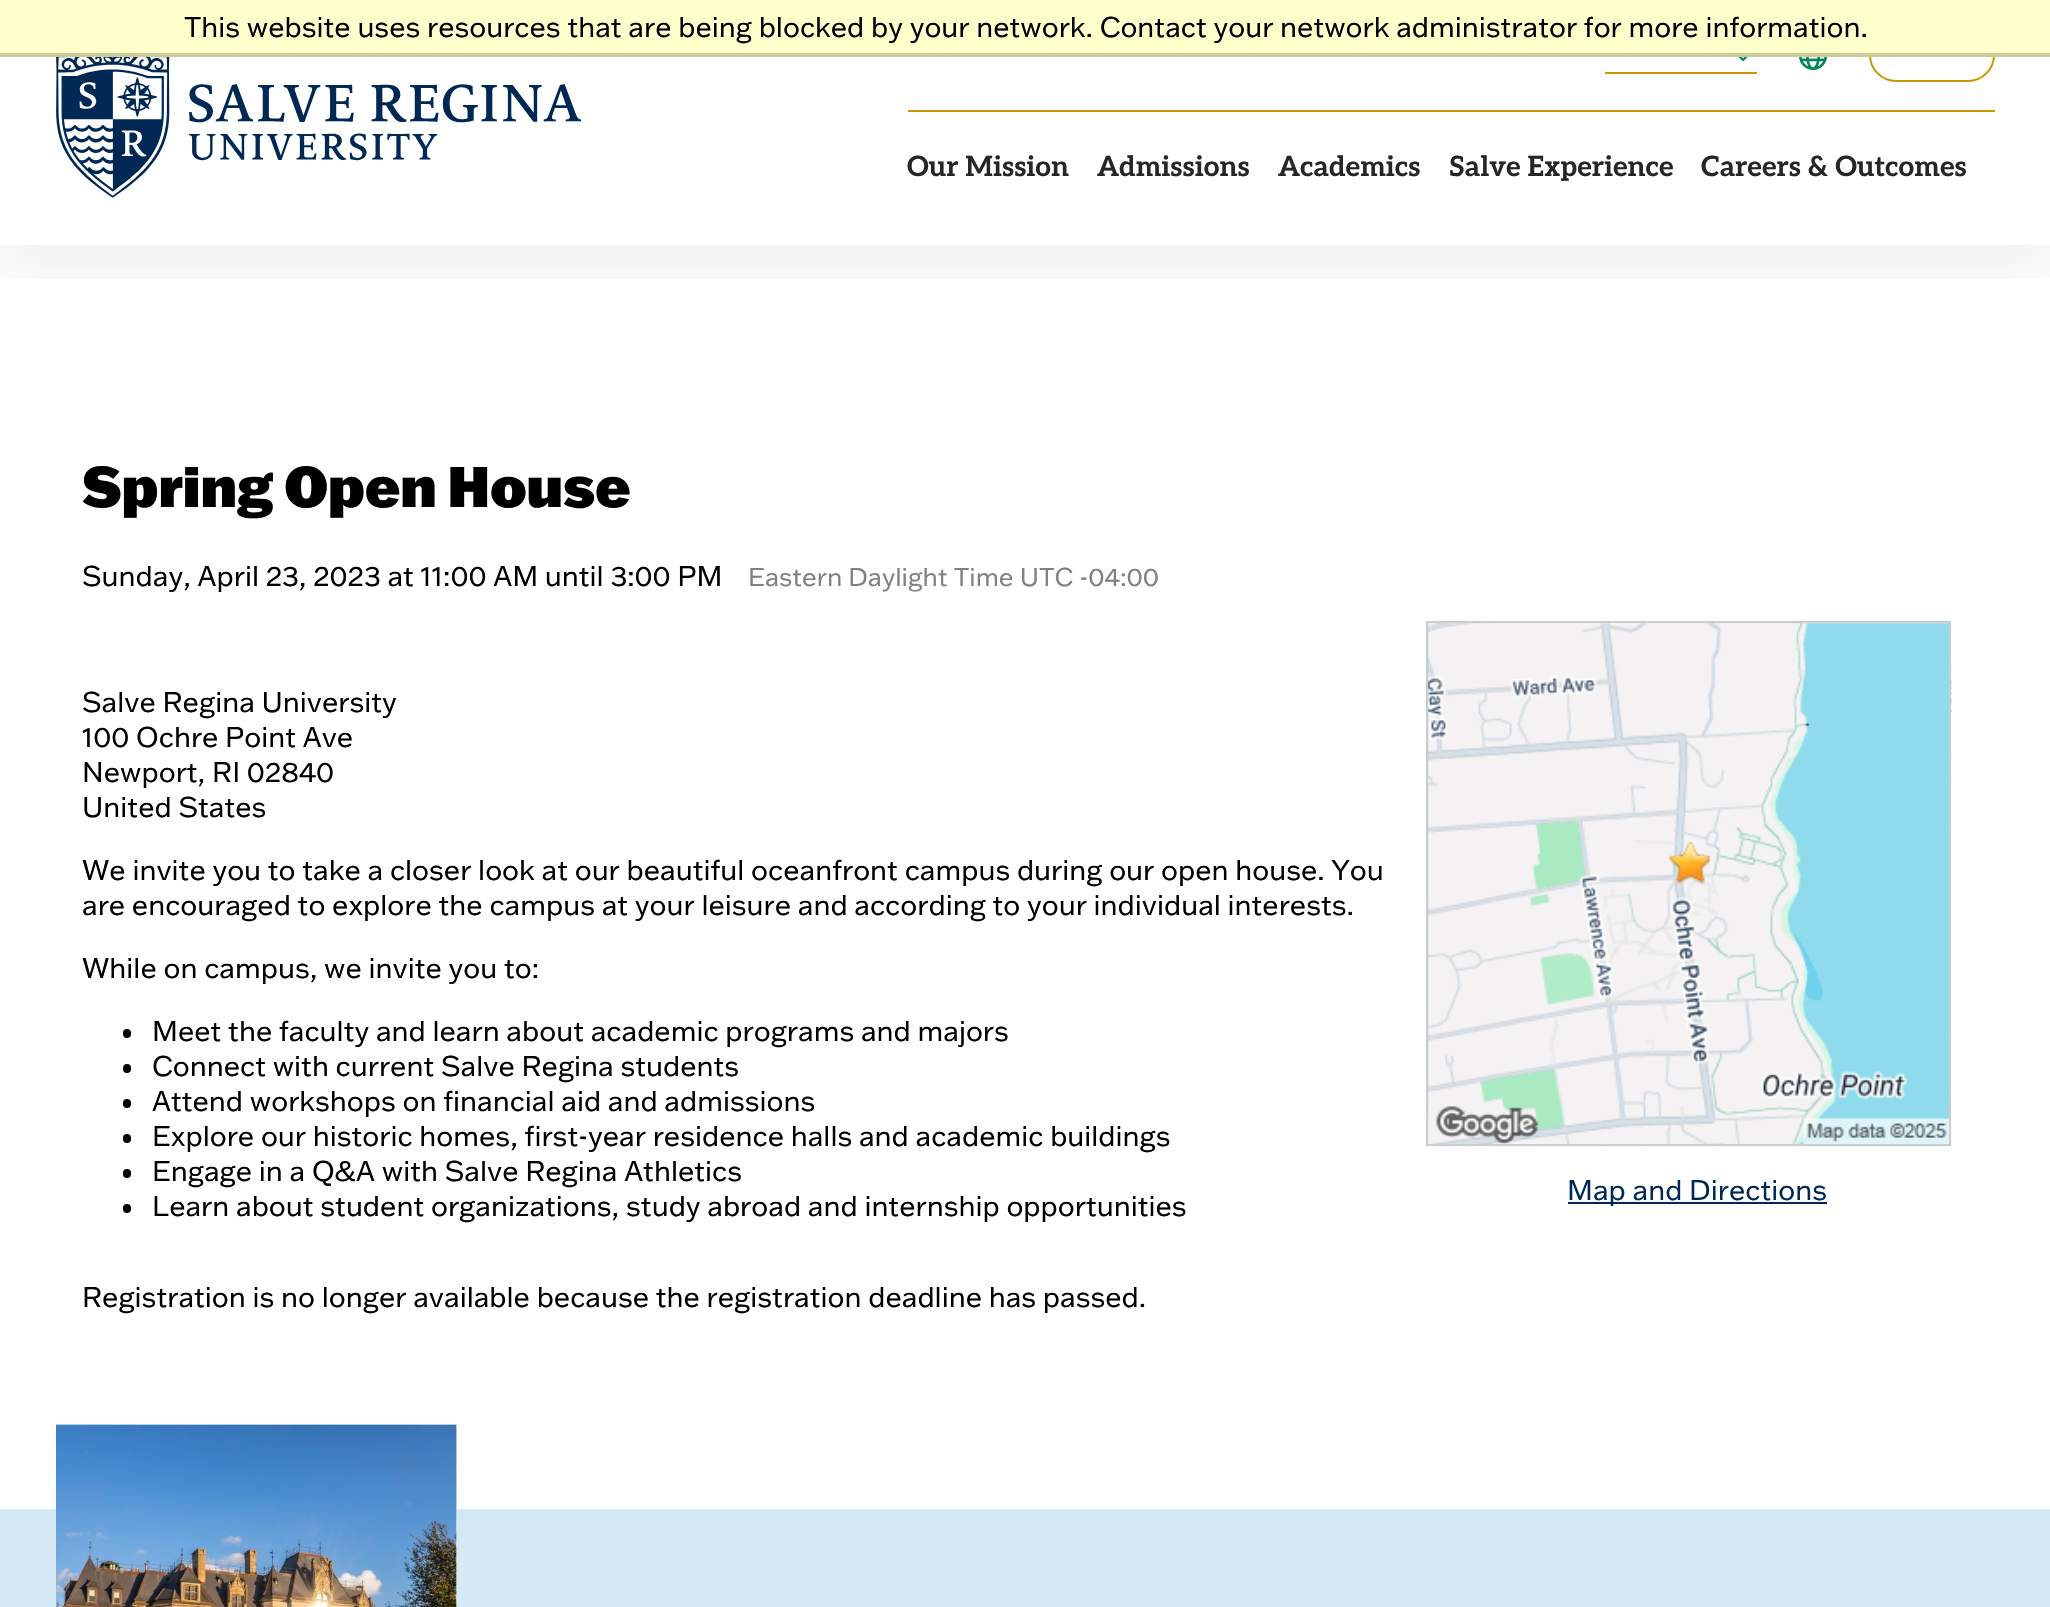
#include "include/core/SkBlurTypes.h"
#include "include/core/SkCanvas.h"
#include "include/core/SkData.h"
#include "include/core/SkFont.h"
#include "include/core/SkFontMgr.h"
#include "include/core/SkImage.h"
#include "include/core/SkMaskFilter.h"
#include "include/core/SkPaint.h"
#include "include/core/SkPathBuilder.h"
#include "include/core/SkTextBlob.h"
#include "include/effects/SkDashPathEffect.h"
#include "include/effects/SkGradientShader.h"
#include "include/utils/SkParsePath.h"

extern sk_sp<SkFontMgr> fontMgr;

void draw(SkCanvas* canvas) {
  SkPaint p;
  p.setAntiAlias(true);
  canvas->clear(SK_ColorWHITE);
  canvas->save();
  canvas->clipRect(SkRect::MakeLTRB(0, 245, 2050, 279));
  p.setColor(SkColorSetARGB(13, 0, 0, 0));
  p.setMaskFilter(SkMaskFilter::MakeBlur(kNormal_SkBlurStyle, 22));
  canvas->drawRect(SkRect::MakeLTRB(0, 28, 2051, 273), p);
  p.setMaskFilter(nullptr);
  canvas->restore();
  p.setStyle(SkPaint::kStroke_Style);
  p.setStrokeWidth(2);
  p.setColor(SkColorSetRGB(201, 151, 0));
  canvas->drawRoundRect(SkRect::MakeLTRB(1870, 29, 1994, 81), 26, 26, p);
  p.setStyle(SkPaint::kFill_Style);
  p.setColor(SkColorSetRGB(255, 255, 204));
  canvas->drawRect(SkRect::MakeLTRB(0, 0, 2050, 53), p);
  p.setColor(SkColorSetRGB(204, 204, 153));
  canvas->drawRect(SkRect::MakeLTRB(0, 53, 2050, 57), p);
  canvas->drawImageRect(SkImages::DeferredFromEncodedData(SkData::MakeFromFileName("images/1.png")), SkRect::MakeLTRB(56, 57, 581, 198), SkSamplingOptions());
  p.setColor(SkColorSetRGB(201, 151, 0));
  canvas->drawRect(SkRect::MakeLTRB(1605, 72, 1757, 74), p);
  canvas->drawImageRect(SkImages::DeferredFromEncodedData(SkData::MakeFromFileName("images/2.png")), SkRect::MakeLTRB(1738, 57, 1748, 61), SkSamplingOptions());
  canvas->drawImageRect(SkImages::DeferredFromEncodedData(SkData::MakeFromFileName("images/3.png")), SkRect::MakeLTRB(1799, 57, 1827, 70), SkSamplingOptions());
  canvas->drawRect(SkRect::MakeLTRB(908, 110, 1995, 112), p);
  p.setColor(SK_ColorBLACK);
  canvas->drawRoundRect(SkRect::MakeLTRB(123, 1029, 131, 1038), 4, 4, p);
  canvas->drawRoundRect(SkRect::MakeLTRB(123, 1064, 131, 1073), 4, 4, p);
  canvas->drawRoundRect(SkRect::MakeLTRB(123, 1099, 131, 1108), 4, 4, p);
  canvas->drawRoundRect(SkRect::MakeLTRB(123, 1134, 131, 1143), 4, 4, p);
  canvas->drawRoundRect(SkRect::MakeLTRB(123, 1169, 131, 1178), 4, 4, p);
  canvas->drawRoundRect(SkRect::MakeLTRB(123, 1204, 131, 1213), 4, 4, p);
  canvas->drawImageRect(SkImages::DeferredFromEncodedData(SkData::MakeFromFileName("images/4.png")), SkRect::MakeLTRB(1426, 621, 1952, 1147), SkSamplingOptions());
  p.setStyle(SkPaint::kStroke_Style);
  p.setColor(SkColorSetRGB(204, 204, 204));
  canvas->drawRect(SkRect::MakeLTRB(1427, 622, 1950, 1145), p);
  p.setStyle(SkPaint::kFill_Style);
  p.setColor(SkColorSetRGB(0, 40, 85));
  canvas->drawRect(SkRect::MakeLTRB(1568, 1202, 1827, 1204), p);
  p.setColor(SkColorSetRGB(212, 232, 246));
  canvas->drawRect(SkRect::MakeLTRB(0, 1509, 2050, 1607), p);
  p.setColor(SK_ColorWHITE);
  canvas->drawPath(SkPathBuilder().moveTo(56, 1425).lineTo(56, 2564).lineTo(59, 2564).lineTo(457, 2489).lineTo(457, 1425).close().detach(), p);
  canvas->drawImageRect(SkImages::DeferredFromEncodedData(SkData::MakeFromFileName("images/5.png")), SkRect::MakeLTRB(56, 1424, 457, 1607), SkSamplingOptions());
  SkFont font1(fontMgr->matchFamilyStyle("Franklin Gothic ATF", SkFontStyle::Normal()), 28);
  font1.setSubpixel(true);
  p.setColor(SK_ColorBLACK);
  canvas->drawString("This website uses resources that are being blocked by your network. Contact your network administrator for more information.", 184, 37, font1, p);
  SkFont font2(fontMgr->matchFamilyStyle("Aleo", SkFontStyle::Bold()), 28);
  font2.setSubpixel(true);
  p.setColor(SkColorSetRGB(38, 38, 38));
  canvas->drawString("Our Mission", 907, 176, font2, p);
  canvas->drawString("Admissions", 1097, 176, font2, p);
  canvas->drawString("Academics", 1278, 176, font2, p);
  canvas->drawString("Salve Experience", 1449, 176, font2, p);
  canvas->drawString("Careers & Outcomes", 1701, 176, font2, p);
  SkFont font3(fontMgr->matchFamilyStyle("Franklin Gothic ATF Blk", SkFontStyle(900, SkFontStyle::kNormal_Width, SkFontStyle::kUpright_Slant)), 56);
  font3.setSubpixel(true);
  p.setColor(SK_ColorBLACK);
  canvas->drawString("Spring Open House", 82, 507, font3, p);
  canvas->drawString("Sunday, April 23, 2023 at 11:00 AM until 3:00 PM", 82, 586, font1, p);
  SkFont font4(fontMgr->matchFamilyStyle("Franklin Gothic ATF", SkFontStyle::Normal()), 25.25f);
  font4.setSubpixel(true);
  p.setColor(SkColorSetRGB(128, 128, 128));
  canvas->drawString("Eastern Daylight Time UTC -04:00", 748, 586, font4, p);
  p.setColor(SK_ColorBLACK);
  canvas->drawString("Salve Regina University", 82, 712, font1, p);
  canvas->drawString("100 Ochre Point Ave", 82, 747, font1, p);
  canvas->drawString("Newport, RI 02840", 82, 782, font1, p);
  canvas->drawString("United States", 82, 817, font1, p);
  canvas->drawString("We invite you to take a closer look at our beautiful oceanfront campus during our open house. You", 82, 880, font1, p);
  canvas->drawString("are encouraged to explore the campus at your leisure and according to your individual interests.", 82, 915, font1, p);
  canvas->drawString("While on campus, we invite you to:", 82, 978, font1, p);
  canvas->drawString("Meet the faculty and learn about academic programs and majors", 152, 1041, font1, p);
  canvas->drawString("Connect with current Salve Regina students", 152, 1076, font1, p);
  canvas->drawString("Attend workshops on financial aid and admissions", 152, 1111, font1, p);
  canvas->drawString("Explore our historic homes, first-year residence halls and academic buildings", 152, 1146, font1, p);
  canvas->drawString("Engage in a Q&A with Salve Regina Athletics", 152, 1181, font1, p);
  canvas->drawString("Learn about student organizations, study abroad and internship opportunities", 152, 1216, font1, p);
  p.setColor(SkColorSetRGB(0, 40, 85));
  canvas->drawString("Map and Directions", 1567, 1200, font1, p);
  p.setColor(SK_ColorBLACK);
  canvas->drawString("Registration is no longer available because the registration deadline has passed.", 82, 1307, font1, p);
}
